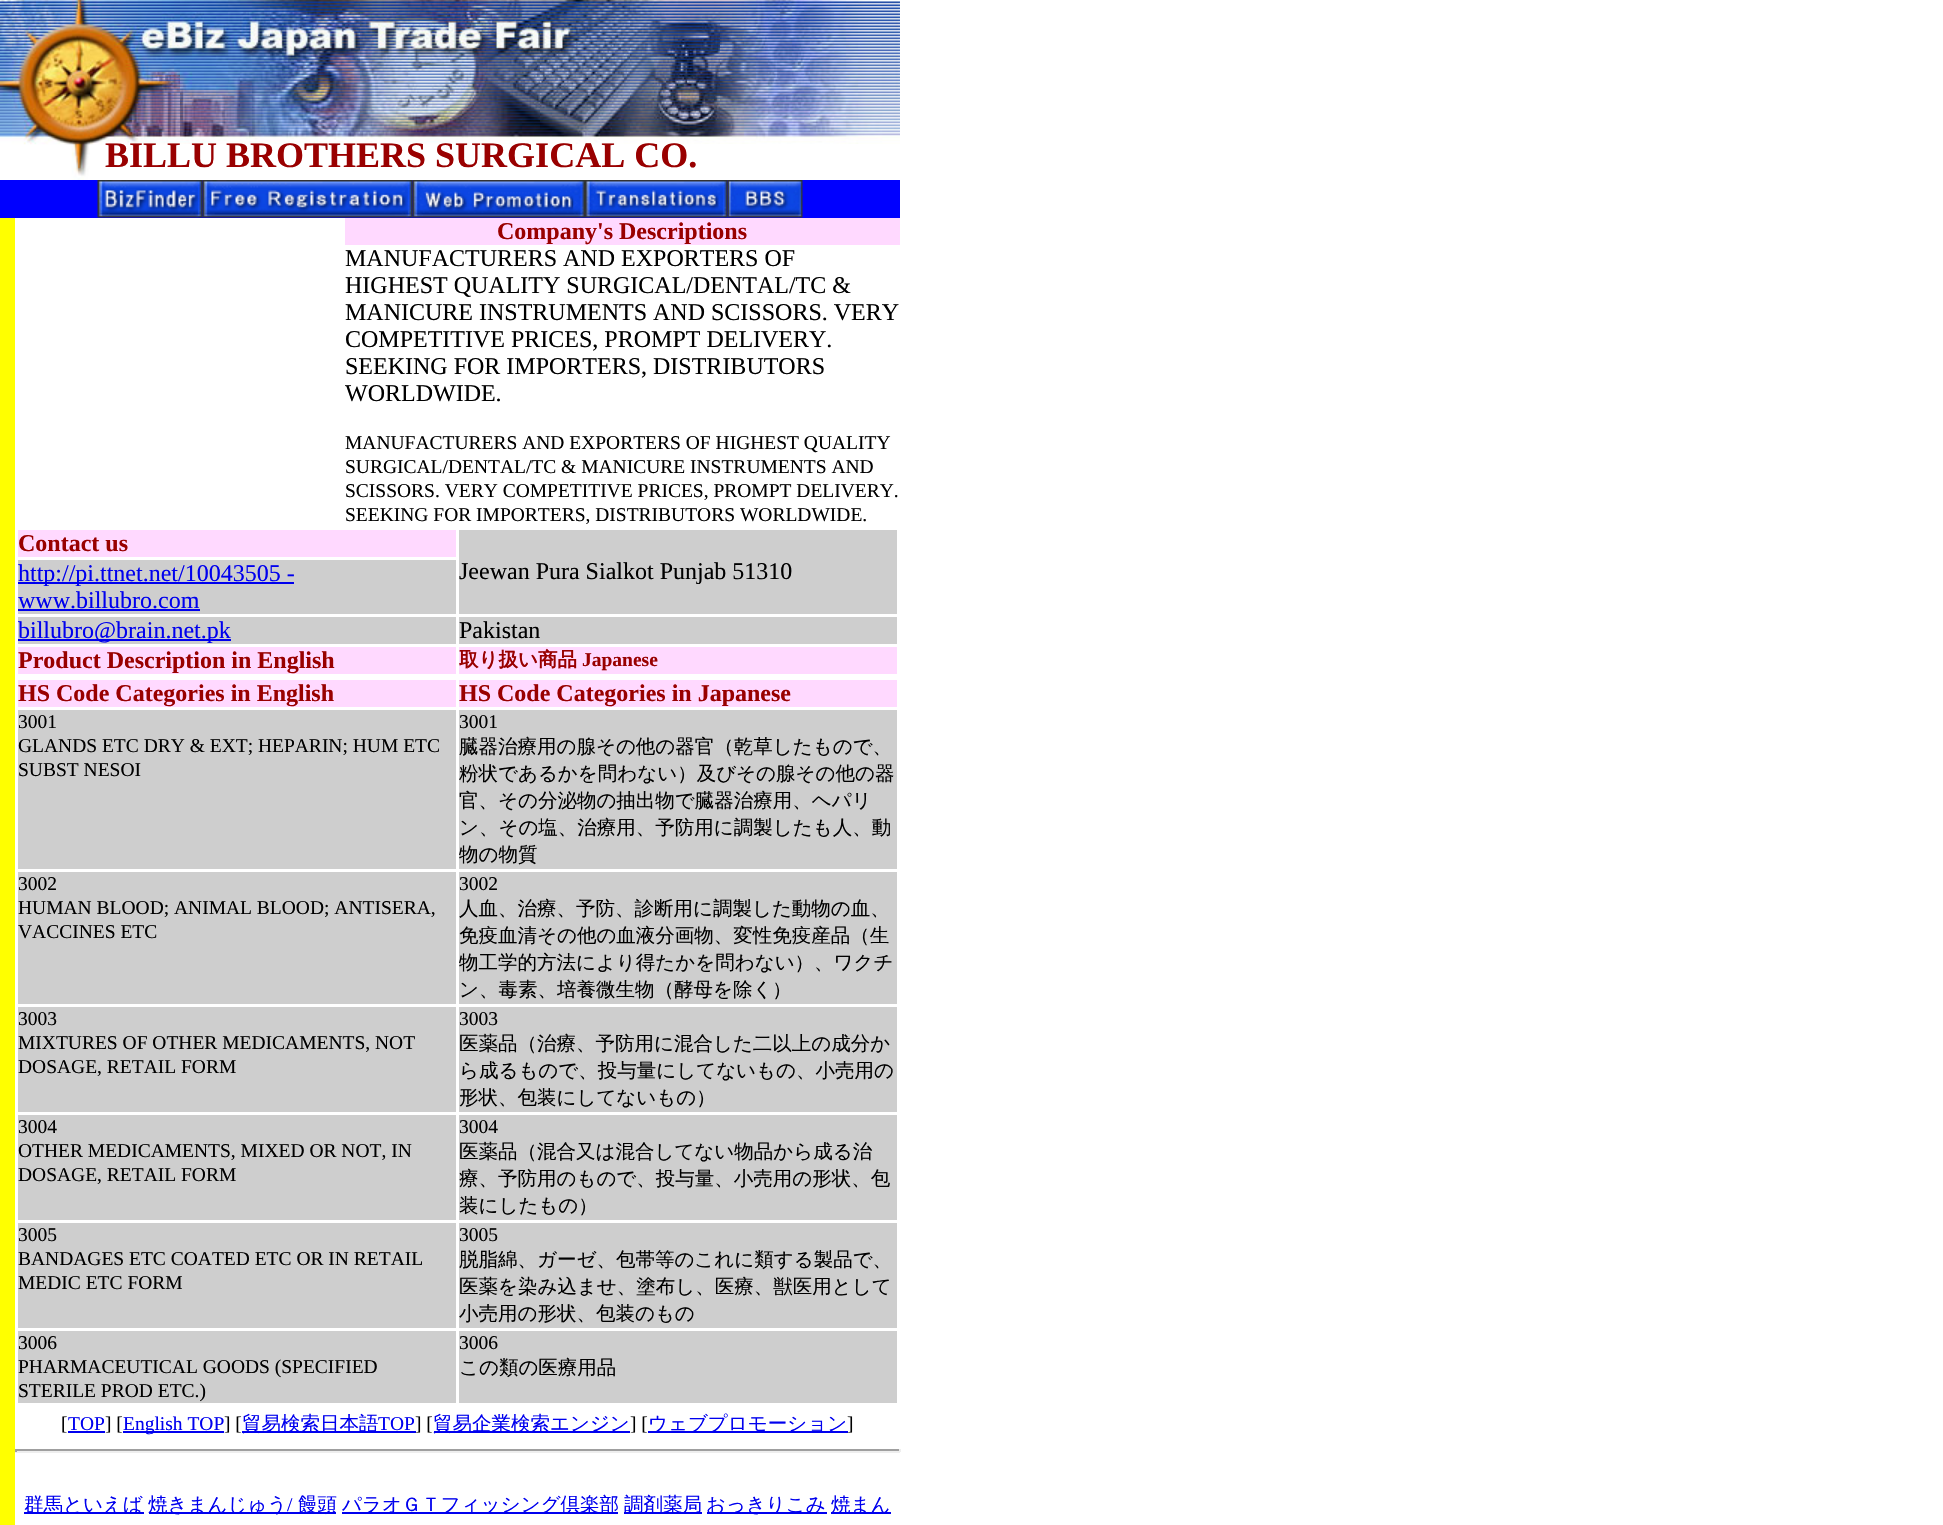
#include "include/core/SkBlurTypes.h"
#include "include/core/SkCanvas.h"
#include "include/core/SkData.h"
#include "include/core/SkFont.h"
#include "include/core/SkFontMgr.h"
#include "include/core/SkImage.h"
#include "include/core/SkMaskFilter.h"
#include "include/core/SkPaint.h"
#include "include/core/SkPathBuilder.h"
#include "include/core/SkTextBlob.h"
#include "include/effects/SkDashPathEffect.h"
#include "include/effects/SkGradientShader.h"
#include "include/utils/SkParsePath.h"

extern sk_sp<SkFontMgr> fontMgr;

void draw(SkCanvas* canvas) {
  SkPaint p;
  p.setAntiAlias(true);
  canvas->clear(SK_ColorWHITE);
  canvas->drawImageRect(SkImages::DeferredFromEncodedData(SkData::MakeFromFileName("images/1.png")), SkRect::MakeLTRB(0, 0, 90, 180), SkSamplingOptions());
  canvas->drawImageRect(SkImages::DeferredFromEncodedData(SkData::MakeFromFileName("images/2.png")), SkRect::MakeLTRB(90, 0, 180, 145), SkSamplingOptions());
  canvas->drawImageRect(SkImages::DeferredFromEncodedData(SkData::MakeFromFileName("images/3.png")), SkRect::MakeLTRB(180, 0, 270, 144), SkSamplingOptions());
  canvas->drawImageRect(SkImages::DeferredFromEncodedData(SkData::MakeFromFileName("images/4.png")), SkRect::MakeLTRB(270, 0, 360, 144), SkSamplingOptions());
  canvas->drawImageRect(SkImages::DeferredFromEncodedData(SkData::MakeFromFileName("images/5.png")), SkRect::MakeLTRB(360, 0, 450, 144), SkSamplingOptions());
  canvas->drawImageRect(SkImages::DeferredFromEncodedData(SkData::MakeFromFileName("images/6.png")), SkRect::MakeLTRB(450, 0, 540, 144), SkSamplingOptions());
  canvas->drawImageRect(SkImages::DeferredFromEncodedData(SkData::MakeFromFileName("images/7.png")), SkRect::MakeLTRB(540, 0, 630, 144), SkSamplingOptions());
  canvas->drawImageRect(SkImages::DeferredFromEncodedData(SkData::MakeFromFileName("images/8.png")), SkRect::MakeLTRB(630, 0, 720, 144), SkSamplingOptions());
  canvas->drawImageRect(SkImages::DeferredFromEncodedData(SkData::MakeFromFileName("images/9.png")), SkRect::MakeLTRB(720, 0, 810, 144), SkSamplingOptions());
  canvas->drawImageRect(SkImages::DeferredFromEncodedData(SkData::MakeFromFileName("images/10.png")), SkRect::MakeLTRB(810, 0, 900, 144), SkSamplingOptions());
  p.setColor(SkColorSetRGB(0, 0, 255));
  canvas->drawRect(SkRect::MakeLTRB(0, 180, 900, 218), p);
  canvas->drawImageRect(SkImages::DeferredFromEncodedData(SkData::MakeFromFileName("images/11.png")), SkRect::MakeLTRB(97, 180, 203, 218), SkSamplingOptions());
  canvas->drawImageRect(SkImages::DeferredFromEncodedData(SkData::MakeFromFileName("images/12.png")), SkRect::MakeLTRB(202, 180, 413, 218), SkSamplingOptions());
  canvas->drawImageRect(SkImages::DeferredFromEncodedData(SkData::MakeFromFileName("images/13.png")), SkRect::MakeLTRB(412, 180, 585, 218), SkSamplingOptions());
  canvas->drawImageRect(SkImages::DeferredFromEncodedData(SkData::MakeFromFileName("images/14.png")), SkRect::MakeLTRB(585, 180, 728, 218), SkSamplingOptions());
  canvas->drawImageRect(SkImages::DeferredFromEncodedData(SkData::MakeFromFileName("images/15.png")), SkRect::MakeLTRB(727, 180, 803, 218), SkSamplingOptions());
  p.setColor(SkColorSetRGB(255, 255, 0));
  canvas->drawRect(SkRect::MakeLTRB(0, 218, 15, 1525), p);
  p.setColor(SkColorSetRGB(255, 217, 255));
  canvas->drawRect(SkRect::MakeLTRB(345, 218, 900, 245), p);
  canvas->drawRect(SkRect::MakeLTRB(18, 530, 456, 557), p);
  p.setColor(SkColorSetRGB(206, 206, 206));
  canvas->drawRect(SkRect::MakeLTRB(459, 530, 897, 614), p);
  canvas->drawRect(SkRect::MakeLTRB(18, 560, 456, 614), p);
  p.setColor(SkColorSetRGB(0, 0, 238));
  canvas->drawRect(SkRect::MakeLTRB(18, 582, 294, 584), p);
  canvas->drawRect(SkRect::MakeLTRB(18, 609, 200, 611), p);
  p.setColor(SkColorSetRGB(206, 206, 206));
  canvas->drawRect(SkRect::MakeLTRB(18, 617, 456, 644), p);
  p.setColor(SkColorSetRGB(0, 0, 238));
  canvas->drawRect(SkRect::MakeLTRB(18, 639, 231, 641), p);
  p.setColor(SkColorSetRGB(206, 206, 206));
  canvas->drawRect(SkRect::MakeLTRB(459, 617, 897, 644), p);
  p.setColor(SkColorSetRGB(255, 217, 255));
  canvas->drawRect(SkRect::MakeLTRB(18, 647, 456, 674), p);
  canvas->drawRect(SkRect::MakeLTRB(459, 647, 897, 674), p);
  canvas->drawRect(SkRect::MakeLTRB(18, 680, 456, 707), p);
  canvas->drawRect(SkRect::MakeLTRB(459, 680, 897, 707), p);
  p.setColor(SkColorSetRGB(206, 206, 206));
  canvas->drawRect(SkRect::MakeLTRB(18, 710, 456, 869), p);
  canvas->drawRect(SkRect::MakeLTRB(459, 710, 897, 869), p);
  canvas->drawRect(SkRect::MakeLTRB(18, 872, 456, 1004), p);
  canvas->drawRect(SkRect::MakeLTRB(459, 872, 897, 1004), p);
  canvas->drawRect(SkRect::MakeLTRB(18, 1007, 456, 1112), p);
  canvas->drawRect(SkRect::MakeLTRB(459, 1007, 897, 1112), p);
  canvas->drawRect(SkRect::MakeLTRB(18, 1115, 456, 1220), p);
  canvas->drawRect(SkRect::MakeLTRB(459, 1115, 897, 1220), p);
  canvas->drawRect(SkRect::MakeLTRB(18, 1223, 456, 1328), p);
  canvas->drawRect(SkRect::MakeLTRB(459, 1223, 897, 1328), p);
  canvas->drawRect(SkRect::MakeLTRB(18, 1331, 456, 1403), p);
  canvas->drawRect(SkRect::MakeLTRB(459, 1331, 897, 1403), p);
  p.setColor(SkColorSetRGB(0, 0, 238));
  canvas->drawRect(SkRect::MakeLTRB(68, 1431, 105, 1433), p);
  canvas->drawRect(SkRect::MakeLTRB(123, 1431, 224, 1433), p);
  canvas->drawRect(SkRect::MakeLTRB(242, 1431, 416, 1433), p);
  canvas->drawRect(SkRect::MakeLTRB(434, 1431, 630, 1433), p);
  canvas->drawRect(SkRect::MakeLTRB(648, 1431, 848, 1433), p);
  p.setColor(SkColorSetRGB(159, 159, 159));
  canvas->drawRect(SkRect::MakeLTRB(15, 1449, 900, 1451), p);
  p.setColor(SkColorSetRGB(238, 238, 238));
  canvas->drawRect(SkRect::MakeLTRB(899, 1449, 901, 1452), p);
  canvas->drawRect(SkRect::MakeLTRB(15, 1451, 900, 1453), p);
  p.setColor(SkColorSetRGB(159, 159, 159));
  canvas->drawRect(SkRect::MakeLTRB(15, 1449, 17, 1452), p);
  p.setColor(SkColorSetRGB(0, 0, 238));
  canvas->drawRect(SkRect::MakeLTRB(24, 1512, 144, 1514), p);
  canvas->drawRect(SkRect::MakeLTRB(149, 1512, 336, 1514), p);
  canvas->drawRect(SkRect::MakeLTRB(342, 1512, 618, 1514), p);
  canvas->drawRect(SkRect::MakeLTRB(624, 1512, 702, 1514), p);
  canvas->drawRect(SkRect::MakeLTRB(707, 1512, 827, 1514), p);
  canvas->drawRect(SkRect::MakeLTRB(831, 1512, 891, 1514), p);
  SkFont font1(fontMgr->matchFamilyStyle("Liberation Serif", SkFontStyle::Bold()), 36);
  font1.setSubpixel(true);
  p.setColor(SkColorSetRGB(153, 0, 0));
  canvas->drawString("BILLU BROTHERS SURGICAL CO.", 105, 167, font1, p);
  SkFont font2(fontMgr->matchFamilyStyle("Liberation Serif", SkFontStyle::Bold()), 24);
  font2.setSubpixel(true);
  canvas->drawString("Company's Descriptions", 497, 239, font2, p);
  SkFont font3(fontMgr->matchFamilyStyle("Liberation Serif", SkFontStyle::Normal()), 24);
  font3.setSubpixel(true);
  p.setColor(SK_ColorBLACK);
  canvas->drawString("MANUFACTURERS AND EXPORTERS OF", 345, 266, font3, p);
  canvas->drawString("HIGHEST QUALITY SURGICAL/DENTAL/TC &", 345, 293, font3, p);
  canvas->drawString("MANICURE INSTRUMENTS AND SCISSORS. VERY", 345, 320, font3, p);
  canvas->drawString("COMPETITIVE PRICES, PROMPT DELIVERY.", 345, 347, font3, p);
  canvas->drawString("SEEKING FOR IMPORTERS, DISTRIBUTORS", 345, 374, font3, p);
  canvas->drawString("WORLDWIDE.", 345, 401, font3, p);
  SkFont font4(fontMgr->matchFamilyStyle("Liberation Serif", SkFontStyle::Normal()), 19.5f);
  font4.setSubpixel(true);
  canvas->drawString("MANUFACTURERS AND EXPORTERS OF HIGHEST QUALITY", 345, 449, font4, p);
  canvas->drawString("SURGICAL/DENTAL/TC & MANICURE INSTRUMENTS AND", 345, 473, font4, p);
  canvas->drawString("SCISSORS. VERY COMPETITIVE PRICES, PROMPT DELIVERY.", 345, 497, font4, p);
  canvas->drawString("SEEKING FOR IMPORTERS, DISTRIBUTORS WORLDWIDE.", 345, 521, font4, p);
  p.setColor(SkColorSetRGB(153, 0, 0));
  canvas->drawString("Contact us", 18, 551, font2, p);
  p.setColor(SK_ColorBLACK);
  canvas->drawString("Jeewan Pura Sialkot Punjab 51310", 459, 579, font3, p);
  p.setColor(SkColorSetRGB(0, 0, 238));
  canvas->drawString("http://pi.ttnet.net/10043505 -", 18, 581, font3, p);
  canvas->drawString("www.billubro.com", 18, 608, font3, p);
  canvas->drawString("billubro@brain.net.pk", 18, 638, font3, p);
  p.setColor(SK_ColorBLACK);
  canvas->drawString("Pakistan", 459, 638, font3, p);
  p.setColor(SkColorSetRGB(153, 0, 0));
  canvas->drawString("Product Description in English", 18, 668, font2, p);
  SkFont font5(fontMgr->matchFamilyStyle("WenQuanYi Zen Hei", SkFontStyle::Bold()), 19.5f);
  font5.setSubpixel(true);
  canvas->drawString("取り扱い商品", 459, 666, font5, p);
  SkFont font6(fontMgr->matchFamilyStyle("Liberation Serif", SkFontStyle::Bold()), 19.5f);
  font6.setSubpixel(true);
  canvas->drawString("Japanese", 582, 666, font6, p);
  canvas->drawString("HS Code Categories in English", 18, 701, font2, p);
  canvas->drawString("HS Code Categories in Japanese", 459, 701, font2, p);
  p.setColor(SK_ColorBLACK);
  canvas->drawString("3001", 18, 728, font4, p);
  canvas->drawString("GLANDS ETC DRY & EXT; HEPARIN; HUM ETC", 18, 752, font4, p);
  canvas->drawString("SUBST NESOI", 18, 776, font4, p);
  canvas->drawString("3001", 459, 728, font4, p);
  SkFont font7(fontMgr->matchFamilyStyle("WenQuanYi Zen Hei", SkFontStyle(500, SkFontStyle::kNormal_Width, SkFontStyle::kUpright_Slant)), 19.5f);
  font7.setSubpixel(true);
  canvas->drawString("臓器治療用の腺その他の器官（乾草したもので、", 459, 753, font7, p);
  canvas->drawString("粉状であるかを問わない）及びその腺その他の器", 459, 780, font7, p);
  canvas->drawString("官、その分泌物の抽出物で臓器治療用、ヘパリ", 459, 807, font7, p);
  canvas->drawString("ン、その塩、治療用、予防用に調製したも人、動", 459, 834, font7, p);
  canvas->drawString("物の物質", 459, 861, font7, p);
  canvas->drawString("3002", 18, 890, font4, p);
  canvas->drawString("HUMAN BLOOD; ANIMAL BLOOD; ANTISERA,", 18, 914, font4, p);
  canvas->drawString("VACCINES ETC", 18, 938, font4, p);
  canvas->drawString("3002", 459, 890, font4, p);
  canvas->drawString("人血、治療、予防、診断用に調製した動物の血、", 459, 915, font7, p);
  canvas->drawString("免疫血清その他の血液分画物、変性免疫産品（生", 459, 942, font7, p);
  canvas->drawString("物工学的方法により得たかを問わない）、ワクチ", 459, 969, font7, p);
  canvas->drawString("ン、毒素、培養微生物（酵母を除く）", 459, 996, font7, p);
  canvas->drawString("3003", 18, 1025, font4, p);
  canvas->drawString("MIXTURES OF OTHER MEDICAMENTS, NOT", 18, 1049, font4, p);
  canvas->drawString("DOSAGE, RETAIL FORM", 18, 1073, font4, p);
  canvas->drawString("3003", 459, 1025, font4, p);
  canvas->drawString("医薬品（治療、予防用に混合した二以上の成分か", 459, 1050, font7, p);
  canvas->drawString("ら成るもので、投与量にしてないもの、小売用の", 459, 1077, font7, p);
  canvas->drawString("形状、包装にしてないもの）", 459, 1104, font7, p);
  canvas->drawString("3004", 18, 1133, font4, p);
  canvas->drawString("OTHER MEDICAMENTS, MIXED OR NOT, IN", 18, 1157, font4, p);
  canvas->drawString("DOSAGE, RETAIL FORM", 18, 1181, font4, p);
  canvas->drawString("3004", 459, 1133, font4, p);
  canvas->drawString("医薬品（混合又は混合してない物品から成る治", 459, 1158, font7, p);
  canvas->drawString("療、予防用のもので、投与量、小売用の形状、包", 459, 1185, font7, p);
  canvas->drawString("装にしたもの）", 459, 1212, font7, p);
  canvas->drawString("3005", 18, 1241, font4, p);
  canvas->drawString("BANDAGES ETC COATED ETC OR IN RETAIL", 18, 1265, font4, p);
  canvas->drawString("MEDIC ETC FORM", 18, 1289, font4, p);
  canvas->drawString("3005", 459, 1241, font4, p);
  canvas->drawString("脱脂綿、ガーゼ、包帯等のこれに類する製品で、", 459, 1266, font7, p);
  canvas->drawString("医薬を染み込ませ、塗布し、医療、獣医用として", 459, 1293, font7, p);
  canvas->drawString("小売用の形状、包装のもの", 459, 1320, font7, p);
  canvas->drawString("3006", 18, 1349, font4, p);
  canvas->drawString("PHARMACEUTICAL GOODS (SPECIFIED", 18, 1373, font4, p);
  canvas->drawString("STERILE PROD ETC.)", 18, 1397, font4, p);
  canvas->drawString("3006", 459, 1349, font4, p);
  canvas->drawString("この類の医療用品", 459, 1374, font7, p);
  canvas->drawString("[", 61, 1430, font4, p);
  p.setColor(SkColorSetRGB(0, 0, 238));
  canvas->drawString("TOP", 68, 1430, font4, p);
  p.setColor(SK_ColorBLACK);
  canvas->drawString("] [", 105, 1430, font4, p);
  p.setColor(SkColorSetRGB(0, 0, 238));
  canvas->drawString("English TOP", 123, 1430, font4, p);
  p.setColor(SK_ColorBLACK);
  canvas->drawString("] [", 224, 1430, font4, p);
  p.setColor(SkColorSetRGB(0, 0, 238));
  canvas->drawString("貿易検索日本語", 242, 1430, font7, p);
  canvas->drawString("TOP", 378, 1430, font4, p);
  p.setColor(SK_ColorBLACK);
  canvas->drawString("] [", 415, 1430, font4, p);
  p.setColor(SkColorSetRGB(0, 0, 238));
  canvas->drawString("貿易企業検索エンジン", 433, 1430, font7, p);
  p.setColor(SK_ColorBLACK);
  canvas->drawString("] [", 630, 1430, font4, p);
  p.setColor(SkColorSetRGB(0, 0, 238));
  canvas->drawString("ウェブプロモーション", 648, 1430, font7, p);
  p.setColor(SK_ColorBLACK);
  canvas->drawString("]", 847, 1430, font4, p);
  p.setColor(SkColorSetRGB(0, 0, 238));
  canvas->drawString("群馬といえば", 24, 1511, font7, p);
  canvas->drawString("焼きまんじゅう", 148, 1511, font7, p);
  canvas->drawString("/", 287, 1511, font4, p);
  canvas->drawString("饅頭", 298, 1511, font7, p);
  canvas->drawString("パラオＧＴフィッシング倶楽部", 342, 1511, font7, p);
  canvas->drawString("調剤薬局", 624, 1511, font7, p);
  canvas->drawString("おっきりこみ", 706, 1511, font7, p);
  canvas->drawString("焼まん", 831, 1511, font7, p);
}
